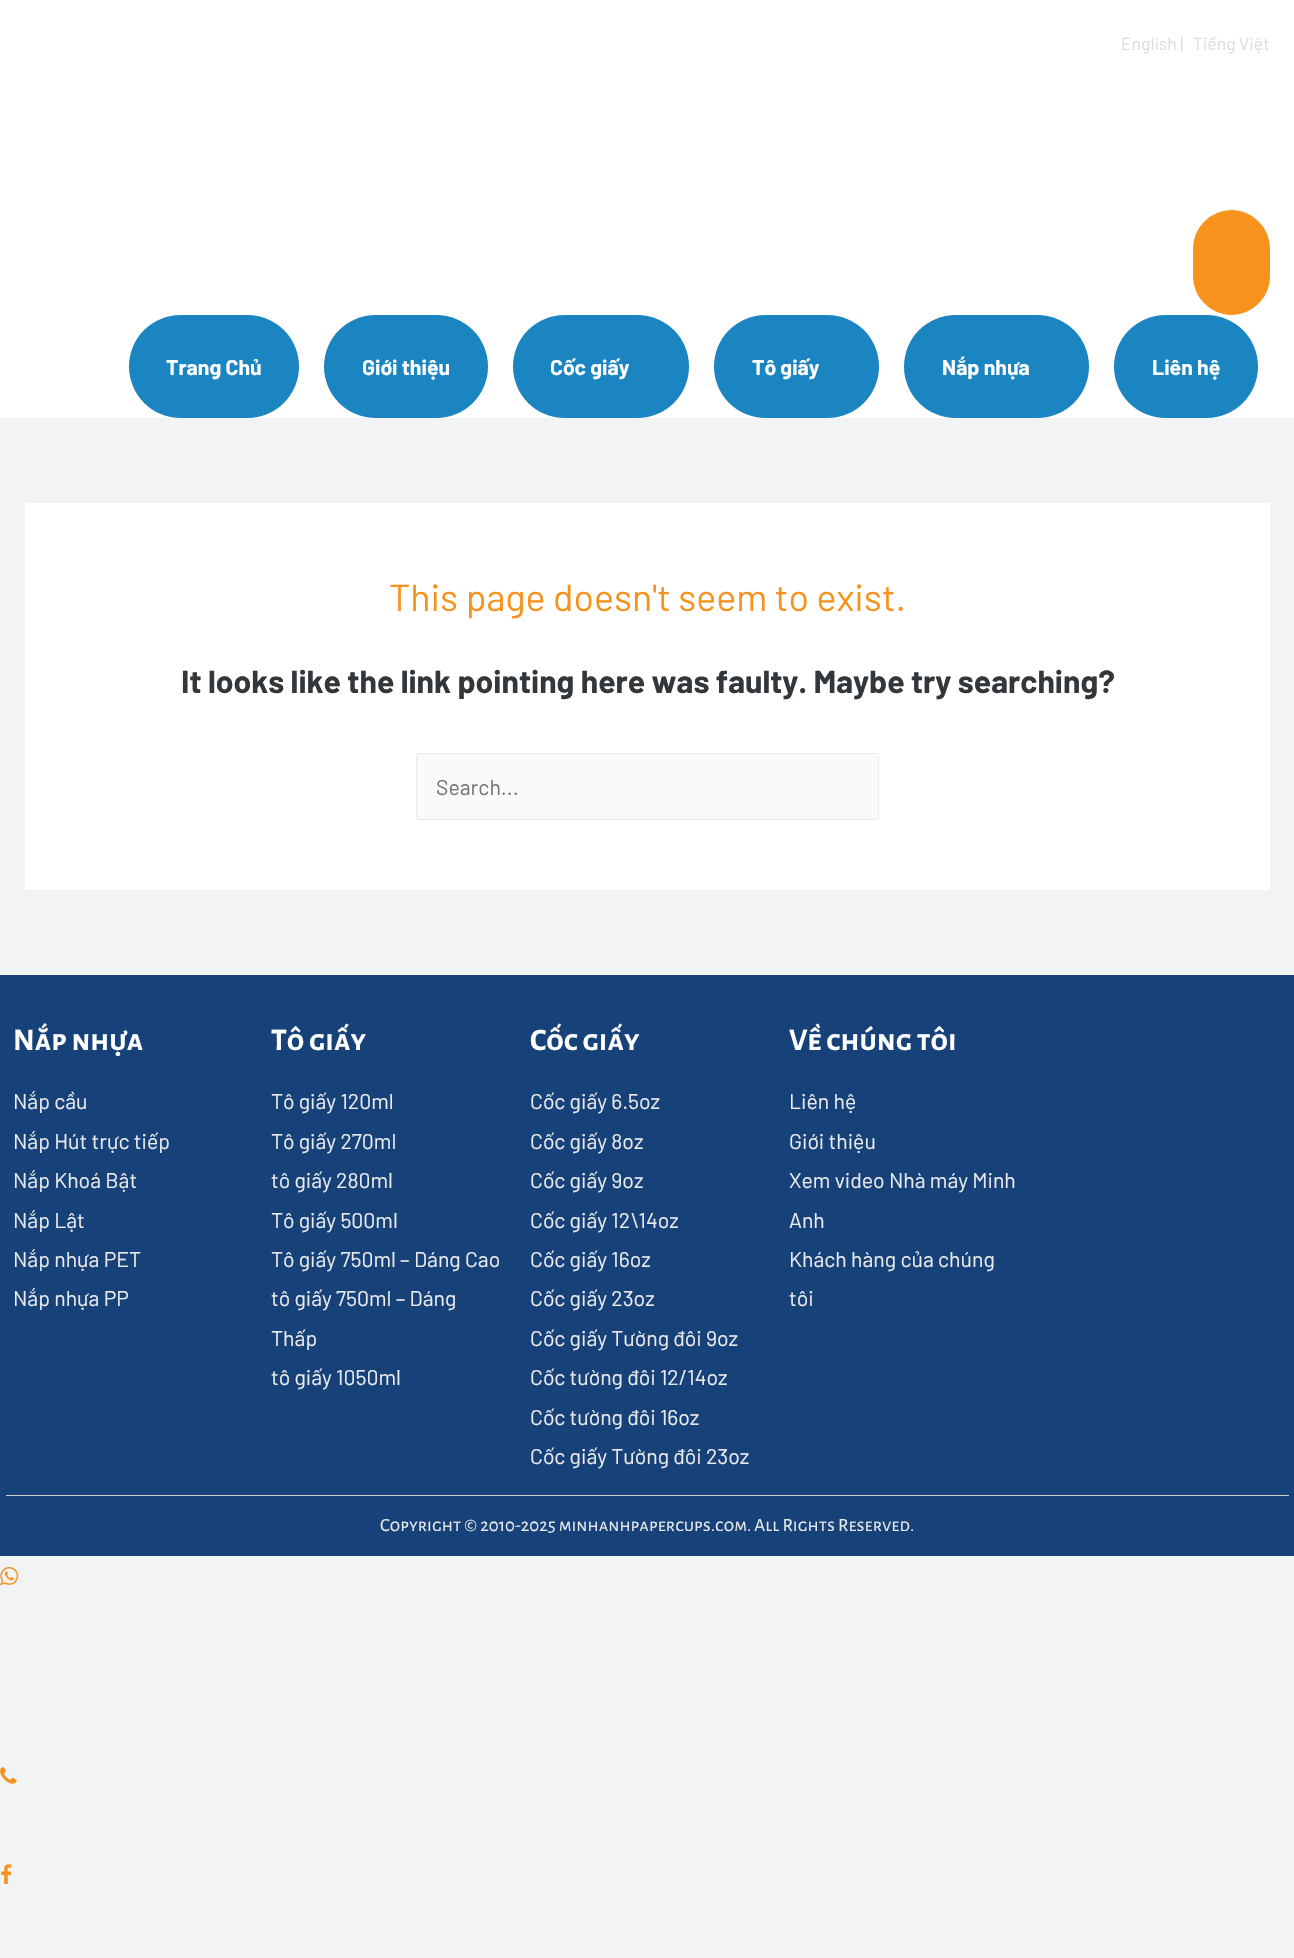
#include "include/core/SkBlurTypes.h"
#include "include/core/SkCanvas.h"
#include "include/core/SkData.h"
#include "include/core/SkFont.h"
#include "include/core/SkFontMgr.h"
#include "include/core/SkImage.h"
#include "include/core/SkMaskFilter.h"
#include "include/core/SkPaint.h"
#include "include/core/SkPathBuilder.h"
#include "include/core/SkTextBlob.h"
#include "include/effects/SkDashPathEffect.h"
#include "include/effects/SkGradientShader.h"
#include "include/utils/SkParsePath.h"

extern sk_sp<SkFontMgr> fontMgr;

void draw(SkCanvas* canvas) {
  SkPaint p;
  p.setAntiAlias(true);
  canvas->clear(SkColorSetRGB(242, 243, 245));
  p.setColor(SK_ColorWHITE);
  canvas->drawRect(SkRect::MakeLTRB(0, 0, 1294, 418), p);
  p.setColor(SkColorSetRGB(247, 147, 29));
  canvas->drawRoundRect(SkRect::MakeLTRB(1193.5f, 210.5f, 1269.5f, 314.5f), 38, 38, p);
  p.setStyle(SkPaint::kStroke_Style);
  p.setStrokeWidth(1);
  canvas->drawRoundRect(SkRect::MakeLTRB(1193.5f, 210.5f, 1269.5f, 314.5f), 38, 38, p);
  p.setStyle(SkPaint::kFill_Style);
  p.setColor(SkColorSetRGB(27, 133, 193));
  canvas->drawRoundRect(SkRect::MakeLTRB(129, 315, 299, 418), 51.5f, 51.5f, p);
  canvas->drawRoundRect(SkRect::MakeLTRB(324, 315, 488, 418), 51.5f, 51.5f, p);
  canvas->drawRoundRect(SkRect::MakeLTRB(513, 315, 689, 418), 51.5f, 51.5f, p);
  canvas->drawRoundRect(SkRect::MakeLTRB(714, 315, 879, 418), 51.5f, 51.5f, p);
  canvas->drawRoundRect(SkRect::MakeLTRB(904, 315, 1089, 418), 51.5f, 51.5f, p);
  canvas->drawRoundRect(SkRect::MakeLTRB(1114, 315, 1258, 418), 51.5f, 51.5f, p);
  p.setColor(SK_ColorWHITE);
  canvas->drawRect(SkRect::MakeLTRB(25, 503, 1270, 890), p);
  p.setColor(SkColorSetRGB(250, 250, 250));
  canvas->drawRoundRect(SkRect::MakeLTRB(416.5f, 753.5f, 878.5f, 819.5f), 2, 2, p);
  p.setStyle(SkPaint::kStroke_Style);
  p.setColor(SkColorSetRGB(234, 234, 234));
  canvas->drawRoundRect(SkRect::MakeLTRB(416.5f, 753.5f, 878.5f, 819.5f), 2, 2, p);
  p.setStyle(SkPaint::kFill_Style);
  p.setColor(SkColorSetRGB(22, 65, 121));
  canvas->drawRect(SkRect::MakeLTRB(0, 975, 1294, 1556), p);
  p.setColor(SkColorSetRGB(204, 204, 204));
  canvas->drawRect(SkRect::MakeLTRB(6, 1495, 1289, 1496), p);
  canvas->drawImageRect(SkImages::DeferredFromEncodedData(SkData::MakeFromFileName("images/1.png")), SkRect::MakeLTRB(0, 1567, 19, 1586), SkSamplingOptions());
  canvas->drawImageRect(SkImages::DeferredFromEncodedData(SkData::MakeFromFileName("images/2.png")), SkRect::MakeLTRB(0, 1767, 17, 1784), SkSamplingOptions());
  canvas->drawImageRect(SkImages::DeferredFromEncodedData(SkData::MakeFromFileName("images/3.png")), SkRect::MakeLTRB(1, 1864, 12, 1884), SkSamplingOptions());
  SkFont font1(fontMgr->matchFamilyStyle("Barlow", SkFontStyle::Normal()), 17.5f);
  font1.setSubpixel(true);
  p.setColor(SkColorSetRGB(221, 221, 221));
  canvas->drawString("English |", 1121, 50, font1, p);
  canvas->drawString("Tiếng Việt", 1193, 50, font1, p);
  SkFont font2(fontMgr->matchFamilyStyle("Barlow", SkFontStyle::Bold()), 21.25f);
  font2.setSubpixel(true);
  p.setColor(SK_ColorWHITE);
  canvas->drawString("Trang Chủ", 166, 375, font2, p);
  canvas->drawString("Giới thiệu", 362, 375, font2, p);
  canvas->drawString("Cốc giấy", 550, 375, font2, p);
  canvas->drawString("Tô giấy", 752, 375, font2, p);
  canvas->drawString("Nắp nhựa", 942, 375, font2, p);
  canvas->drawString("Liên hệ", 1152, 375, font2, p);
  SkFont font3(fontMgr->matchFamilyStyle("Barlow", SkFontStyle::Normal()), 37.5f);
  font3.setSubpixel(true);
  p.setColor(SkColorSetRGB(247, 147, 29));
  canvas->drawString("This page doesn't seem to exist.", 389, 611, font3, p);
  SkFont font4(fontMgr->matchFamilyStyle("Barlow", SkFontStyle::Bold()), 31.9f);
  font4.setSubpixel(true);
  p.setColor(SkColorSetRGB(50, 55, 60));
  canvas->drawString("It looks like the link pointing here was faulty. Maybe try searching?", 181, 693, font4, p);
  SkFont font5(fontMgr->matchFamilyStyle("Barlow", SkFontStyle::Normal()), 21.25f);
  font5.setSubpixel(true);
  p.setColor(SkColorSetRGB(117, 117, 117));
  canvas->drawString("Search...", 436, 795, font5, p);
  SkFont font6(fontMgr->matchFamilyStyle("Alegreya Sans SC", SkFontStyle::Bold()), 31.25f);
  font6.setSubpixel(true);
  p.setColor(SK_ColorWHITE);
  canvas->drawString("Nắp nhựa", 13, 1050, font6, p);
  p.setColor(SkColorSetRGB(234, 234, 234));
  canvas->drawString("Nắp cầu", 13, 1109, font5, p);
  canvas->drawString("Nắp Hút trực tiếp", 13, 1149, font5, p);
  canvas->drawString("Nắp Khoá Bật", 13, 1188, font5, p);
  canvas->drawString("Nắp Lật", 13, 1228, font5, p);
  canvas->drawString("Nắp nhựa PET", 13, 1267, font5, p);
  canvas->drawString("Nắp nhựa PP", 13, 1306, font5, p);
  p.setColor(SK_ColorWHITE);
  canvas->drawString("Tô giấy", 271, 1050, font6, p);
  p.setColor(SkColorSetRGB(234, 234, 234));
  canvas->drawString("Tô giấy 120ml", 271, 1109, font5, p);
  canvas->drawString("Tô giấy 270ml", 271, 1149, font5, p);
  canvas->drawString("tô giấy 280ml", 271, 1188, font5, p);
  canvas->drawString("Tô giấy 500ml", 271, 1228, font5, p);
  canvas->drawString("Tô giấy 750ml – Dáng Cao", 271, 1267, font5, p);
  canvas->drawString("tô giấy 750ml – Dáng", 271, 1306, font5, p);
  canvas->drawString("Thấp", 271, 1346, font5, p);
  canvas->drawString("tô giấy 1050ml", 271, 1385, font5, p);
  p.setColor(SK_ColorWHITE);
  canvas->drawString("Cốc giấy", 530, 1050, font6, p);
  p.setColor(SkColorSetRGB(234, 234, 234));
  canvas->drawString("Cốc giấy 6.5oz", 530, 1109, font5, p);
  canvas->drawString("Cốc giấy 8oz", 530, 1149, font5, p);
  canvas->drawString("Cốc giấy 9oz", 530, 1188, font5, p);
  canvas->drawString("Cốc giấy 12\\14oz", 530, 1228, font5, p);
  canvas->drawString("Cốc giấy 16oz", 530, 1267, font5, p);
  canvas->drawString("Cốc giấy 23oz", 530, 1306, font5, p);
  canvas->drawString("Cốc giấy Tường đôi 9oz", 530, 1346, font5, p);
  canvas->drawString("Cốc tường đôi 12/14oz", 530, 1385, font5, p);
  canvas->drawString("Cốc tường đôi 16oz", 530, 1425, font5, p);
  canvas->drawString("Cốc giấy Tường đôi 23oz", 530, 1464, font5, p);
  p.setColor(SK_ColorWHITE);
  canvas->drawString("Về chúng tôi", 789, 1050, font6, p);
  p.setColor(SkColorSetRGB(234, 234, 234));
  canvas->drawString("Liên hệ", 789, 1109, font5, p);
  canvas->drawString("Giới thiệu", 789, 1149, font5, p);
  canvas->drawString("Xem video Nhà máy Minh", 789, 1188, font5, p);
  canvas->drawString("Anh", 789, 1228, font5, p);
  canvas->drawString("Khách hàng của chúng", 789, 1267, font5, p);
  canvas->drawString("tôi", 789, 1306, font5, p);
  SkFont font7(fontMgr->matchFamilyStyle("Alegreya Sans SC", SkFontStyle::Normal()), 18.75f);
  font7.setSubpixel(true);
  canvas->drawString("Copyright © 2010-2025 minhanhpapercups.com. All Rights Reserved.", 380, 1531, font7, p);
}
